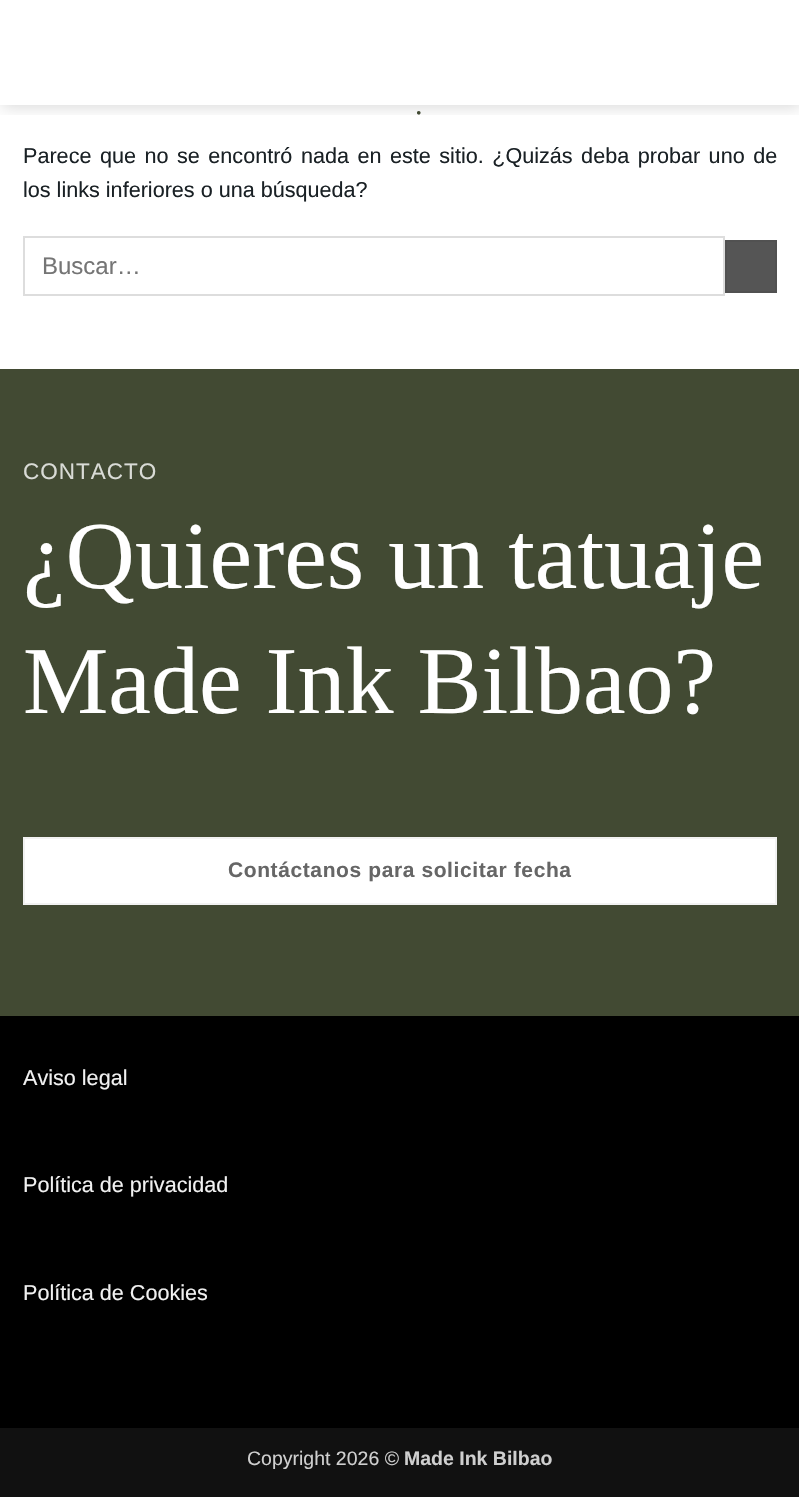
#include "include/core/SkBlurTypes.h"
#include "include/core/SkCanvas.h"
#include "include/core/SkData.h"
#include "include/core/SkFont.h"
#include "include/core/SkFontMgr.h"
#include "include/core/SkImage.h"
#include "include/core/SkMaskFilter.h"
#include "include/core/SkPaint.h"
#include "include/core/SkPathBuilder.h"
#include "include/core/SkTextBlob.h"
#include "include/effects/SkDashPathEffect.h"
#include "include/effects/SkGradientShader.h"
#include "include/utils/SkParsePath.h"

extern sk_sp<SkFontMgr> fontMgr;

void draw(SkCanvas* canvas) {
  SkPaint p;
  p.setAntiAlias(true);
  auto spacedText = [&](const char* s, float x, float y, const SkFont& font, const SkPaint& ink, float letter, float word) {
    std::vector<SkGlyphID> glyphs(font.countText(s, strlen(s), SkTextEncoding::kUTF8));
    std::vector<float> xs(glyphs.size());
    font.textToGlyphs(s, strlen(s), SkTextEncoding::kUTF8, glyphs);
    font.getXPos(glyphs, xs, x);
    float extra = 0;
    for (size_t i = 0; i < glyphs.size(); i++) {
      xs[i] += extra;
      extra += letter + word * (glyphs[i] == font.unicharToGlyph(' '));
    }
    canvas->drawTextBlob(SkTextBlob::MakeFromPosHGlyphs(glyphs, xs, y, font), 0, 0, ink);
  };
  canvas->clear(SK_ColorWHITE);
  canvas->save();
  canvas->clipRect(SkRect::MakeLTRB(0, 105, 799, 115));
  p.setColor(SkColorSetARGB(38, 0, 0, 0));
  p.setMaskFilter(SkMaskFilter::MakeBlur(kNormal_SkBlurStyle, 7.5f));
  canvas->drawRect(SkRect::MakeLTRB(2, 2, 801, 107), p);
  p.setMaskFilter(nullptr);
  canvas->restore();
  p.setStyle(SkPaint::kStroke_Style);
  p.setStrokeWidth(2);
  p.setColor(SkColorSetRGB(221, 221, 221));
  canvas->drawRect(SkRect::MakeLTRB(24, 237, 724, 295), p);
  p.setStyle(SkPaint::kFill_Style);
  p.setColor(SkColorSetRGB(85, 85, 85));
  canvas->drawRect(SkRect::MakeLTRB(726, 241, 776, 292), p);
  p.setStyle(SkPaint::kStroke_Style);
  p.setColor(SkColorSetRGB(81, 81, 81));
  canvas->drawRect(SkRect::MakeLTRB(726, 241, 776, 292), p);
  p.setStyle(SkPaint::kFill_Style);
  p.setColor(SkColorSetRGB(66, 74, 51));
  canvas->drawRect(SkRect::MakeLTRB(0, 369, 799, 1016), p);
  p.setColor(SK_ColorWHITE);
  canvas->drawRect(SkRect::MakeLTRB(24, 838, 776, 904), p);
  p.setStyle(SkPaint::kStroke_Style);
  p.setColor(SkColorSetRGB(242, 242, 242));
  canvas->drawRect(SkRect::MakeLTRB(24, 838, 776, 904), p);
  p.setStyle(SkPaint::kFill_Style);
  p.setColor(SK_ColorBLACK);
  canvas->drawRect(SkRect::MakeLTRB(0, 1016, 799, 1428), p);
  p.setColor(SkColorSetRGB(17, 17, 17));
  canvas->drawRect(SkRect::MakeLTRB(0, 1428, 799, 1497), p);
  SkFont font1(fontMgr->matchFamilyStyle("Liberation Serif", SkFontStyle::Normal()), 30);
  font1.setSubpixel(true);
  p.setColor(SkColorSetRGB(66, 74, 51));
  canvas->drawString(".", 415, 114, font1, p);
  SkFont font2(fontMgr->matchFamilyStyle("Liberation Sans", SkFontStyle::Normal()), 21.6f);
  font2.setSubpixel(true);
  p.setColor(SkColorSetRGB(26, 33, 37));
  spacedText("Parece que no se encontró nada en este sitio. ¿Quizás deba probar uno de", 23, 163, font2, p, 0, 2.5f);
  canvas->drawString("los links inferiores o una búsqueda?", 23, 197, font2, p);
  SkFont font3(fontMgr->matchFamilyStyle("Liberation Sans", SkFontStyle::Normal()), 24);
  font3.setSubpixel(true);
  p.setColor(SkColorSetRGB(117, 117, 117));
  canvas->drawString("Buscar…", 42, 274, font3, p);
  SkFont font4(fontMgr->matchFamilyStyle("Liberation Sans", SkFontStyle::Normal()), 22.5f);
  font4.setSubpixel(true);
  p.setColor(SkColorSetRGB(217, 219, 214));
  spacedText("CONTACTO", 23, 479, font4, p, 1, 0);
  SkFont font5(fontMgr->matchFamilyStyle("Liberation Serif", SkFontStyle::Normal()), 96);
  font5.setSubpixel(true);
  p.setColor(SK_ColorWHITE);
  canvas->drawString("¿Quieres un tatuaje", 23, 588, font5, p);
  canvas->drawString("Made Ink Bilbao?", 23, 713, font5, p);
  SkFont font6(fontMgr->matchFamilyStyle("Liberation Sans", SkFontStyle::Bold()), 21);
  font6.setSubpixel(true);
  p.setColor(SkColorSetRGB(102, 102, 102));
  spacedText("Contáctanos para solicitar fecha", 228, 877, font6, p, 0.6f, 0);
  p.setColor(SkColorSetRGB(241, 241, 241));
  canvas->drawString("Aviso legal", 23, 1085, font2, p);
  canvas->drawString("Política de privacidad", 23, 1192, font2, p);
  canvas->drawString("Política de Cookies", 23, 1300, font2, p);
  SkFont font7(fontMgr->matchFamilyStyle("Liberation Sans", SkFontStyle::Normal()), 19.5f);
  font7.setSubpixel(true);
  p.setColor(SkColorSetRGB(207, 207, 207));
  canvas->drawString("Copyright 2026 ©", 247, 1465, font7, p);
  SkFont font8(fontMgr->matchFamilyStyle("Liberation Sans", SkFontStyle::Bold()), 19.5f);
  font8.setSubpixel(true);
  canvas->drawString("Made Ink Bilbao", 404, 1465, font8, p);
}
